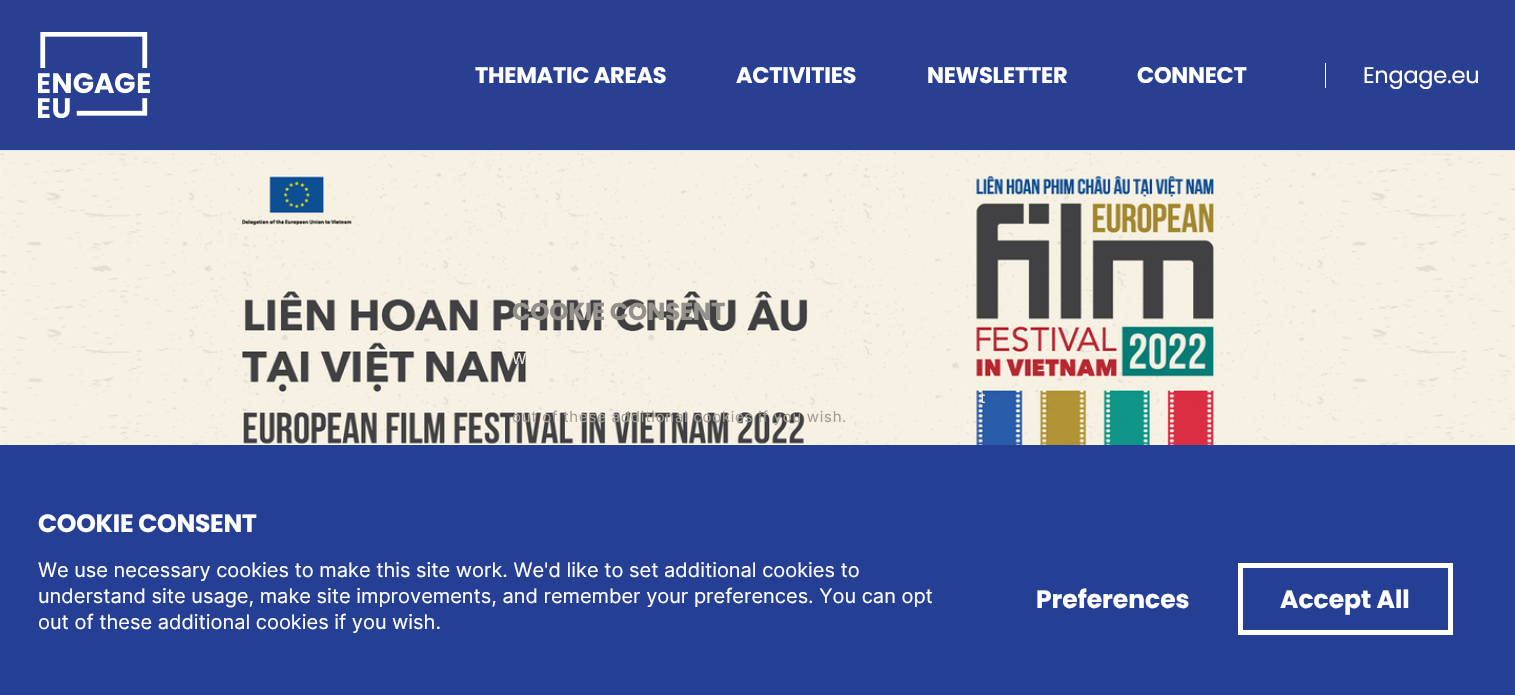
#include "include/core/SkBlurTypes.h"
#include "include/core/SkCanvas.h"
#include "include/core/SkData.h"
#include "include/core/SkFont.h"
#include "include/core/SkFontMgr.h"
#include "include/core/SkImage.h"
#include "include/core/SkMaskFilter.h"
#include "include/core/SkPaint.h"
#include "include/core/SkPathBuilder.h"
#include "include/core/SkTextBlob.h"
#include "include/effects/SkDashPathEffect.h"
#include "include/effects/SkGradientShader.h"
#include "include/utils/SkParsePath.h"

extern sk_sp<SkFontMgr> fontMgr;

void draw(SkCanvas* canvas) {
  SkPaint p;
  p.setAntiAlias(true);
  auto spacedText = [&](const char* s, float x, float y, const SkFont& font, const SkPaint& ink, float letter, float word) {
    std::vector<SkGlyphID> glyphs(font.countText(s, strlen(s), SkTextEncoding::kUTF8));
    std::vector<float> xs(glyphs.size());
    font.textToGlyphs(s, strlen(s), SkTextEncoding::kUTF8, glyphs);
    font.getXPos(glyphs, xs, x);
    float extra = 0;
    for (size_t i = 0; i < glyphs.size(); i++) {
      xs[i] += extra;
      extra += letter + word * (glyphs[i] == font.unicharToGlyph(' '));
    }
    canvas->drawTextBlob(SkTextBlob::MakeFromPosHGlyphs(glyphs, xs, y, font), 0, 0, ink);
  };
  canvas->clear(SK_ColorWHITE);
  canvas->drawImageRect(SkImages::DeferredFromEncodedData(SkData::MakeFromFileName("images/2.png")), SkRect::MakeLTRB(0, 150, 1515, 445), SkSamplingOptions());
  p.setColor(SkColorSetRGB(229, 229, 229));
  p.setMaskFilter(SkMaskFilter::MakeBlur(kNormal_SkBlurStyle, 0.5f));
  canvas->drawRect(SkRect::MakeLTRB(0, 1, 1515, 151), p);
  p.setMaskFilter(nullptr);
  p.setColor(SkColorSetRGB(41, 63, 145));
  canvas->drawRect(SkRect::MakeLTRB(0, 0, 1515, 150), p);
  canvas->drawImageRect(SkImages::DeferredFromEncodedData(SkData::MakeFromFileName("images/1.png")), SkRect::MakeLTRB(38, 32, 150, 118), SkSamplingOptions());
  p.setColor(SK_ColorWHITE);
  canvas->drawRect(SkRect::MakeLTRB(1325, 63, 1326, 88), p);
  p.setColor(SkColorSetRGB(37, 63, 149));
  canvas->drawRect(SkRect::MakeLTRB(0, 445, 1515, 695), p);
  p.setStyle(SkPaint::kStroke_Style);
  p.setStrokeWidth(5);
  p.setColor(SK_ColorWHITE);
  canvas->drawRect(SkRect::MakeLTRB(1240.5f, 565.5f, 1450.5f, 632.5f), p);
  SkFont font1(fontMgr->matchFamilyStyle("Poppins", SkFontStyle::Bold()), 22.5f);
  font1.setSubpixel(true);
  p.setStyle(SkPaint::kFill_Style);
  spacedText("THEMATIC AREAS", 475, 83, font1, p, -0.25f, 0);
  spacedText("ACTIVITIES", 736, 83, font1, p, -0.25f, 0);
  spacedText("NEWSLETTER", 927, 83, font1, p, -0.25f, 0);
  spacedText("CONNECT", 1137, 83, font1, p, -0.25f, 0);
  SkFont font2(fontMgr->matchFamilyStyle("Poppins", SkFontStyle::Normal()), 22.5f);
  font2.setSubpixel(true);
  spacedText("Engage.eu", 1363, 83, font2, p, -0.25f, 0);
  SkFont font3(fontMgr->matchFamilyStyle("Poppins", SkFontStyle::Bold()), 24.4f);
  font3.setSubpixel(true);
  p.setColor(SkColorSetRGB(148, 145, 140));
  spacedText("COOKIE CONSENT", 512, 320, font3, p, -0.25f, 0);
  SkFont font4(fontMgr->matchFamilyStyle("Inter", SkFontStyle::Normal()), 15);
  font4.setSubpixel(true);
  p.setColor(SkColorSetRGB(240, 232, 219));
  spacedText("W", 512, 364, font4, p, 0.75f, 0);
  p.setColor(SkColorSetRGB(242, 238, 225));
  spacedText("t", 980, 403, font4, p, 0.75f, 0);
  p.setColor(SkColorSetRGB(161, 157, 151));
  spacedText("out of these additional cookies if you wish.", 512, 422, font4, p, 0.75f, 0);
  SkFont font5(fontMgr->matchFamilyStyle("Poppins", SkFontStyle::Bold()), 25);
  font5.setSubpixel(true);
  p.setColor(SK_ColorWHITE);
  spacedText("COOKIE CONSENT", 38, 532, font5, p, -0.25f, 0);
  SkFont font6(fontMgr->matchFamilyStyle("Inter", SkFontStyle::Normal()), 20);
  font6.setSubpixel(true);
  canvas->drawString("We use necessary cookies to make this site work. We'd like to set additional cookies to", 38, 577, font6, p);
  canvas->drawString("understand site usage, make site improvements, and remember your preferences. You can opt", 38, 603, font6, p);
  canvas->drawString("out of these additional cookies if you wish.", 38, 629, font6, p);
  canvas->drawString("Preferences", 1036, 608, font5, p);
  canvas->drawString("Accept All", 1280, 608, font5, p);
}
